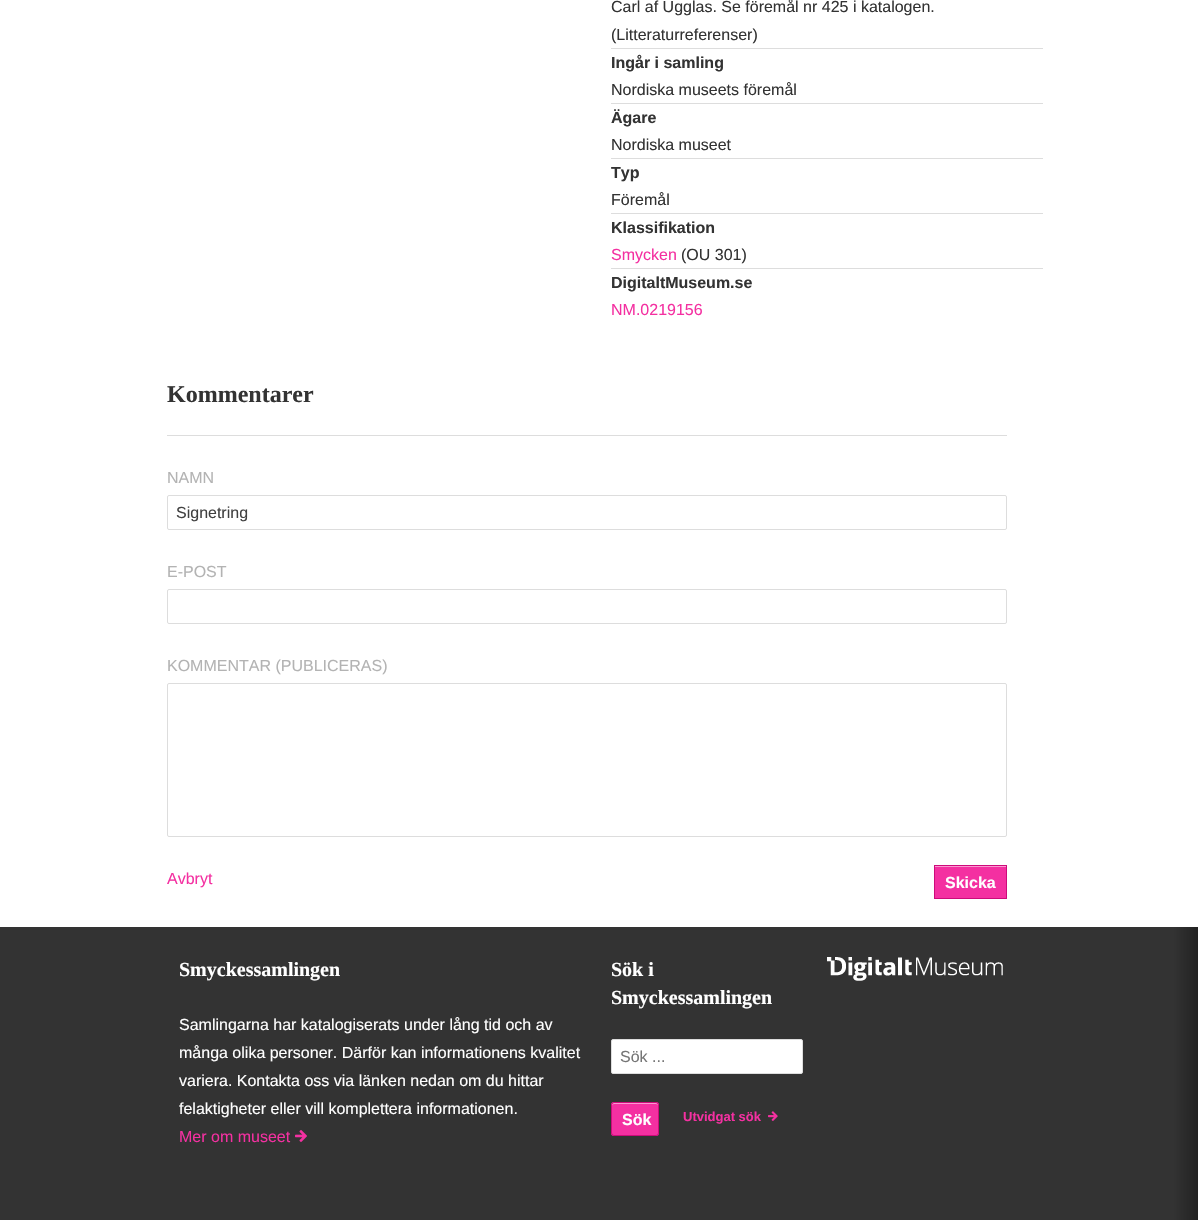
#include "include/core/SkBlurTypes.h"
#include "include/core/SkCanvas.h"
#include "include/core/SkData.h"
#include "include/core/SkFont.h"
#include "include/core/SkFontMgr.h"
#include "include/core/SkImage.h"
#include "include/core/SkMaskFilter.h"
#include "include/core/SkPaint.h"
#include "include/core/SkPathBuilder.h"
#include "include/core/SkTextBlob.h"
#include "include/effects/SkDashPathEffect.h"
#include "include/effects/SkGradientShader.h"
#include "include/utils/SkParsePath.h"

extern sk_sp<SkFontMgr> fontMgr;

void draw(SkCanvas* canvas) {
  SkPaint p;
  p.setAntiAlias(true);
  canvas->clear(SK_ColorWHITE);
  p.setColor(SkColorSetRGB(221, 221, 221));
  canvas->drawRect(SkRect::MakeLTRB(611, 48, 1043, 49), p);
  canvas->drawRect(SkRect::MakeLTRB(611, 103, 1043, 104), p);
  canvas->drawRect(SkRect::MakeLTRB(611, 158, 1043, 159), p);
  canvas->drawRect(SkRect::MakeLTRB(611, 213, 1043, 214), p);
  canvas->drawRect(SkRect::MakeLTRB(611, 268, 1043, 269), p);
  canvas->drawRect(SkRect::MakeLTRB(167, 435, 1007, 436), p);
  p.setStyle(SkPaint::kStroke_Style);
  p.setStrokeWidth(1);
  canvas->drawRoundRect(SkRect::MakeLTRB(167.5f, 495.5f, 1006.5f, 529.5f), 1.5f, 1.5f, p);
  canvas->drawRoundRect(SkRect::MakeLTRB(167.5f, 589.5f, 1006.5f, 623.5f), 1.5f, 1.5f, p);
  canvas->drawRoundRect(SkRect::MakeLTRB(167.5f, 683.5f, 1006.5f, 836.5f), 1.5f, 1.5f, p);
  p.setStyle(SkPaint::kFill_Style);
  p.setColor(SkColorSetRGB(244, 48, 161));
  canvas->drawRect(SkRect::MakeLTRB(935, 867, 1006, 898), p);
  p.setColor(SkColorSetRGB(250, 152, 208));
  canvas->drawRect(SkRect::MakeLTRB(935, 866, 1006, 867), p);
  p.setStyle(SkPaint::kStroke_Style);
  p.setColor(SkColorSetRGB(205, 11, 123));
  canvas->drawRect(SkRect::MakeLTRB(934.5f, 865.5f, 1006.5f, 898.5f), p);
  p.setStyle(SkPaint::kFill_Style);
  {
    const SkColor colors[] = {SkColorSetRGB(34, 34, 34), SkColorSetRGB(51, 51, 51)};
    const float stops[] = {0, 0.02f};
    const SkPoint ends[] = {{1198, 1074}, {-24, 1074}};
    p.setShader(SkGradientShader::MakeLinear(ends, colors, stops, 2, SkTileMode::kClamp));
    p.setAlpha(255);
  }
  canvas->drawRect(SkRect::MakeLTRB(0, 927, 1198, 1220), p);
  canvas->drawImageRect(SkImages::DeferredFromEncodedData(SkData::MakeFromFileName("images/1.png")), SkRect::MakeLTRB(295, 1130, 307, 1142), SkSamplingOptions());
  p.setShader(nullptr);
  p.setColor(SK_ColorWHITE);
  canvas->drawRoundRect(SkRect::MakeLTRB(611.5f, 1039.5f, 802.5f, 1073.5f), 1.5f, 1.5f, p);
  p.setStyle(SkPaint::kStroke_Style);
  p.setColor(SkColorSetRGB(221, 221, 221));
  canvas->drawRoundRect(SkRect::MakeLTRB(611.5f, 1039.5f, 802.5f, 1073.5f), 1.5f, 1.5f, p);
  p.setStyle(SkPaint::kFill_Style);
  p.setColor(SkColorSetRGB(244, 48, 161));
  canvas->drawRoundRect(SkRect::MakeLTRB(611, 1102, 659, 1136), 3, 3, p);
  p.setColor(SkColorSetRGB(250, 152, 208));
  canvas->drawPath(SkPathBuilder().moveTo(614, 1104).lineTo(656, 1104).cubicTo(657, 1104, 658, 1105, 658, 1106).cubicTo(658, 1101, 653, 1103, 649, 1103).lineTo(621, 1103).cubicTo(617, 1103, 612, 1101, 612, 1106).cubicTo(612, 1105, 613, 1104, 614, 1104).close().detach(), p);
  p.setStyle(SkPaint::kStroke_Style);
  p.setColor(SkColorSetRGB(205, 11, 123));
  canvas->drawRoundRect(SkRect::MakeLTRB(611.5f, 1102.5f, 658.5f, 1135.5f), 2.5f, 2.5f, p);
  canvas->drawImageRect(SkImages::DeferredFromEncodedData(SkData::MakeFromFileName("images/2.png")), SkRect::MakeLTRB(768, 1111, 778, 1121), SkSamplingOptions());
  canvas->drawImageRect(SkImages::DeferredFromEncodedData(SkData::MakeFromFileName("images/3.png")), SkRect::MakeLTRB(827, 957, 1003, 981), SkSamplingOptions());
  SkFont font1(fontMgr->matchFamilyStyle("Liberation Sans", SkFontStyle::Normal()), 16);
  font1.setSubpixel(true);
  p.setStyle(SkPaint::kFill_Style);
  p.setColor(SkColorSetRGB(51, 51, 51));
  canvas->drawString("Carl af Ugglas. Se föremål nr 425 i katalogen.", 611, 12, font1, p);
  canvas->drawString("(Litteraturreferenser)", 611, 40, font1, p);
  SkFont font2(fontMgr->matchFamilyStyle("Liberation Sans", SkFontStyle::Bold()), 16);
  font2.setSubpixel(true);
  canvas->drawString("Ingår i samling", 611, 68, font2, p);
  canvas->drawString("Nordiska museets föremål", 611, 95, font1, p);
  canvas->drawString("Ägare", 611, 123, font2, p);
  canvas->drawString("Nordiska museet", 611, 150, font1, p);
  canvas->drawString("Typ", 611, 178, font2, p);
  canvas->drawString("Föremål", 611, 205, font1, p);
  canvas->drawString("Klassifikation", 611, 233, font2, p);
  p.setColor(SkColorSetRGB(244, 48, 161));
  canvas->drawString("Smycken", 611, 260, font1, p);
  p.setColor(SkColorSetRGB(51, 51, 51));
  canvas->drawString("(OU 301)", 681, 260, font1, p);
  canvas->drawString("DigitaltMuseum.se", 611, 288, font2, p);
  p.setColor(SkColorSetRGB(244, 48, 161));
  canvas->drawString("NM.0219156", 611, 315, font1, p);
  SkFont font3(fontMgr->matchFamilyStyle("Liberation Serif", SkFontStyle::Bold()), 24);
  font3.setSubpixel(true);
  p.setColor(SkColorSetRGB(51, 51, 51));
  canvas->drawString("Kommentarer", 167, 402, font3, p);
  p.setColor(SkColorSetRGB(179, 179, 179));
  canvas->drawString("NAMN", 167, 483, font1, p);
  p.setColor(SkColorSetRGB(64, 64, 64));
  canvas->drawString("Signetring", 176, 518, font1, p);
  p.setColor(SkColorSetRGB(179, 179, 179));
  canvas->drawString("E-POST", 167, 577, font1, p);
  canvas->drawString("KOMMENTAR (PUBLICERAS)", 167, 671, font1, p);
  p.setColor(SkColorSetRGB(244, 48, 161));
  canvas->drawString("Avbryt", 167, 884, font1, p);
  p.setColor(SK_ColorWHITE);
  canvas->drawString("Skicka", 945, 888, font2, p);
  SkFont font4(fontMgr->matchFamilyStyle("Liberation Serif", SkFontStyle::Bold()), 20);
  font4.setSubpixel(true);
  canvas->drawString("Smyckessamlingen", 179, 976, font4, p);
  canvas->drawString("Samlingarna har katalogiserats under lång tid och av", 179, 1030, font1, p);
  canvas->drawString("många olika personer. Därför kan informationens kvalitet", 179, 1058, font1, p);
  canvas->drawString("variera. Kontakta oss via länken nedan om du hittar", 179, 1086, font1, p);
  canvas->drawString("felaktigheter eller vill komplettera informationen.", 179, 1114, font1, p);
  p.setColor(SkColorSetRGB(244, 48, 161));
  canvas->drawString("Mer om museet", 179, 1142, font1, p);
  p.setColor(SK_ColorWHITE);
  canvas->drawString("Sök i", 611, 976, font4, p);
  canvas->drawString("Smyckessamlingen", 611, 1004, font4, p);
  p.setColor(SkColorSetRGB(117, 117, 117));
  canvas->drawString("Sök ...", 620, 1062, font1, p);
  p.setColor(SK_ColorWHITE);
  canvas->drawString("Sök", 622, 1125, font2, p);
  SkFont font5(fontMgr->matchFamilyStyle("Liberation Sans", SkFontStyle::Bold()), 13);
  font5.setSubpixel(true);
  p.setColor(SkColorSetRGB(244, 48, 161));
  canvas->drawString("Utvidgat sök", 683, 1121, font5, p);
}
